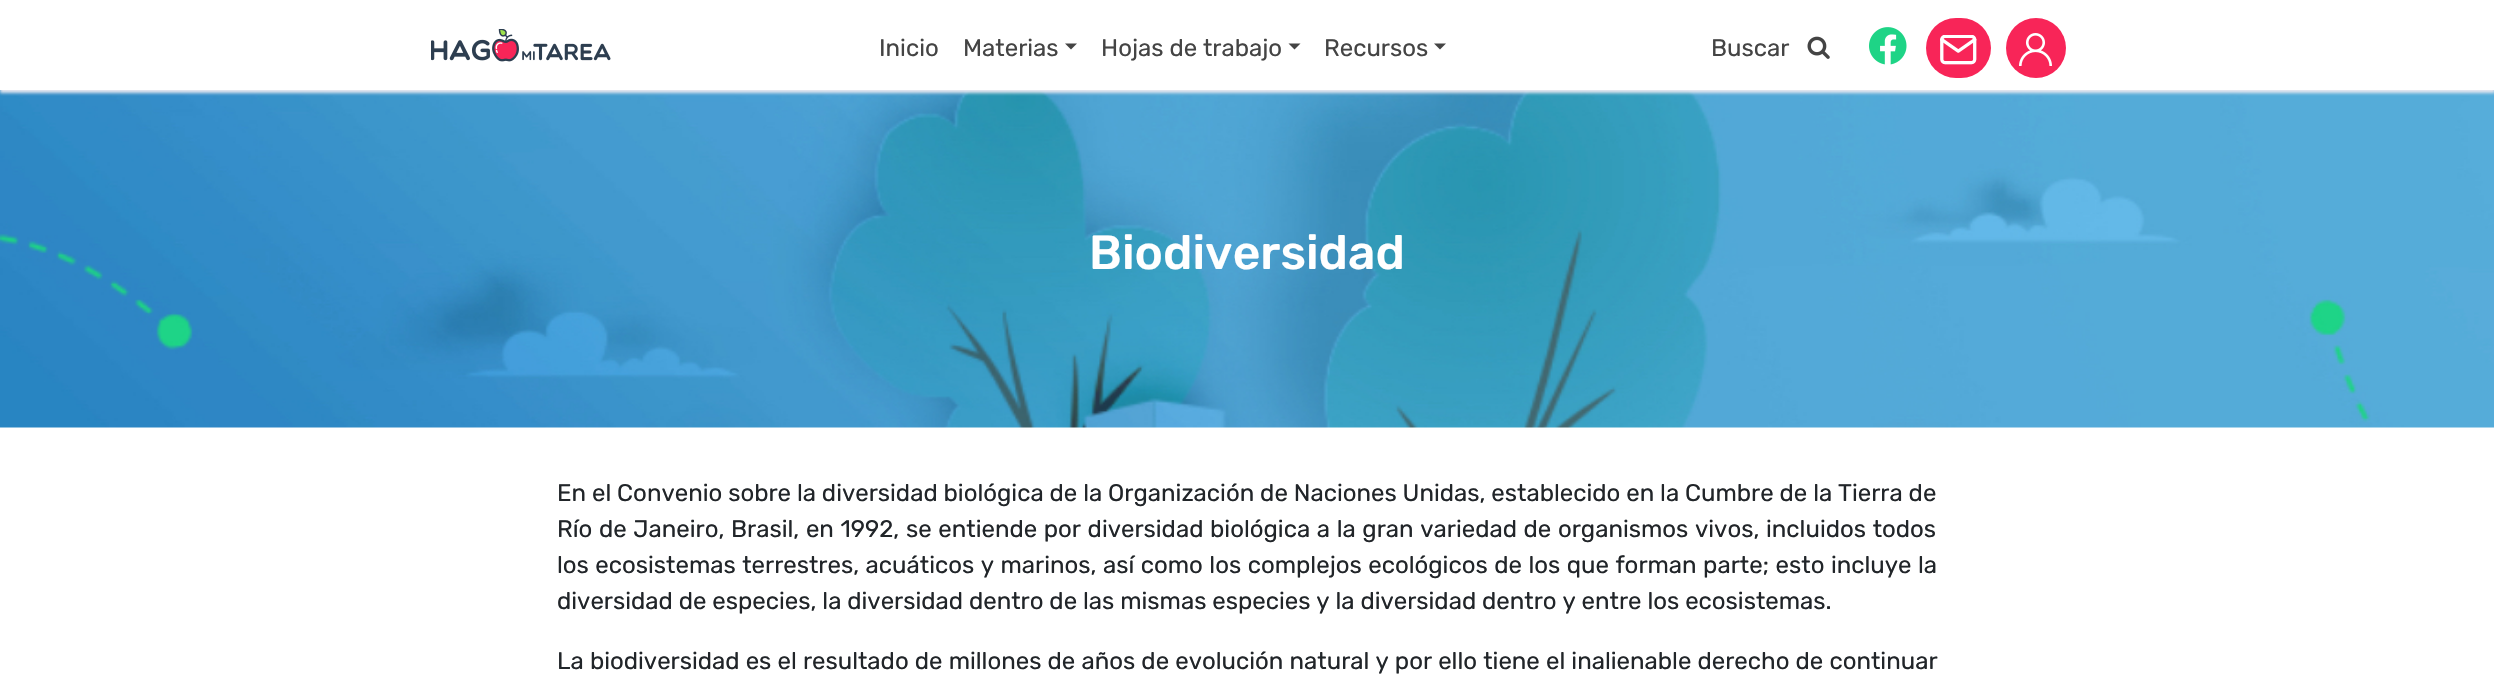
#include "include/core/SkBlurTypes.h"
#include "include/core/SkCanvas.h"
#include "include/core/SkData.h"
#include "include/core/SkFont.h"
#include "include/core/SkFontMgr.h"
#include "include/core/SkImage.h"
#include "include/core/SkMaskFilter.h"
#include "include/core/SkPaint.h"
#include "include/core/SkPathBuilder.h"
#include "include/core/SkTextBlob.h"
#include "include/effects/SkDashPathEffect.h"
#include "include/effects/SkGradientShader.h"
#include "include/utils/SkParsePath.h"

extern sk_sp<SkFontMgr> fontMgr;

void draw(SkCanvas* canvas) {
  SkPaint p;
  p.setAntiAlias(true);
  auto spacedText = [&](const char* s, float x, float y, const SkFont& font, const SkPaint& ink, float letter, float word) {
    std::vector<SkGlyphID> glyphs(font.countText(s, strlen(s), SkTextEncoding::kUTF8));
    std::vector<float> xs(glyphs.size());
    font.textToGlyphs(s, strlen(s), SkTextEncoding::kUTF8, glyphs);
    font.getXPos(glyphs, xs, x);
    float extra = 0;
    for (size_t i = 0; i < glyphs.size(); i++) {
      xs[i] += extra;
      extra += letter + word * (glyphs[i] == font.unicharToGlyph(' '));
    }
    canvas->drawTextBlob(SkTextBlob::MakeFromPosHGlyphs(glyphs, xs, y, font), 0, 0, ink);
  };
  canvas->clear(SK_ColorWHITE);
  canvas->drawImageRect(SkImages::DeferredFromEncodedData(SkData::MakeFromFileName("images/6.png")), SkRect::MakeLTRB(0, 90, 2494, 428), SkSamplingOptions());
  canvas->save();
  canvas->clipRect(SkRect::MakeLTRB(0, 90, 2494, 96));
  p.setColor(SkColorSetRGB(229, 230, 239));
  p.setMaskFilter(SkMaskFilter::MakeBlur(kNormal_SkBlurStyle, 1.5f));
  canvas->drawRect(SkRect::MakeLTRB(0, 3, 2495, 93), p);
  p.setMaskFilter(nullptr);
  canvas->restore();
  canvas->drawImageRect(SkImages::DeferredFromEncodedData(SkData::MakeFromFileName("images/1.png")), SkRect::MakeLTRB(431, 29, 611, 62), SkSamplingOptions());
  p.setColor(SkColorSetRGB(68, 68, 68));
  canvas->drawPath(SkPathBuilder().moveTo(1065, 43.5f).lineTo(1077, 43.5f).lineTo(1071, 49.5f).close().detach(), p);
  canvas->drawPath(SkPathBuilder().moveTo(1288.5f, 43.5f).lineTo(1300.5f, 43.5f).lineTo(1294.5f, 49.5f).close().detach(), p);
  canvas->drawPath(SkPathBuilder().moveTo(1434, 43.5f).lineTo(1446, 43.5f).lineTo(1440, 49.5f).close().detach(), p);
  canvas->drawImageRect(SkImages::DeferredFromEncodedData(SkData::MakeFromFileName("images/2.png")), SkRect::MakeLTRB(1807, 36, 1830, 59), SkSamplingOptions());
  canvas->drawImageRect(SkImages::DeferredFromEncodedData(SkData::MakeFromFileName("images/3.png")), SkRect::MakeLTRB(1869, 27, 1907, 65), SkSamplingOptions());
  p.setColor(SkColorSetRGB(248, 37, 88));
  canvas->drawRoundRect(SkRect::MakeLTRB(1926, 18, 1991, 78), 30, 30, p);
  canvas->drawImageRect(SkImages::DeferredFromEncodedData(SkData::MakeFromFileName("images/4.png")), SkRect::MakeLTRB(1940, 35, 1977, 65), SkSamplingOptions());
  canvas->drawCircle(2036, 48, 30, p);
  canvas->drawImageRect(SkImages::DeferredFromEncodedData(SkData::MakeFromFileName("images/5.png")), SkRect::MakeLTRB(2019, 33, 2052, 66), SkSamplingOptions());
  SkFont font1(fontMgr->matchFamilyStyle("Rubik", SkFontStyle::Normal()), 24);
  font1.setSubpixel(true);
  p.setColor(SkColorSetRGB(68, 68, 68));
  canvas->drawString("Inicio", 879, 56, font1, p);
  canvas->drawString("Materias", 963, 56, font1, p);
  canvas->drawString("Hojas de trabajo", 1101, 56, font1, p);
  canvas->drawString("Recursos", 1324, 56, font1, p);
  canvas->drawString("Buscar", 1711, 56, font1, p);
  SkFont font2(fontMgr->matchFamilyStyle("Rubik", SkFontStyle(500, SkFontStyle::kNormal_Width, SkFontStyle::kUpright_Slant)), 48);
  font2.setSubpixel(true);
  p.setColor(SK_ColorWHITE);
  canvas->drawString("Biodiversidad", 1089, 269, font2, p);
  p.setColor(SkColorSetRGB(33, 37, 41));
  canvas->drawString("En el Convenio sobre la diversidad biológica de la Organización de Naciones Unidas, establecido en la Cumbre de la Tierra de", 557, 501, font1, p);
  spacedText("Río de Janeiro, Brasil, en 1992, se entiende por diversidad biológica a la gran variedad de organismos vivos, incluidos todos", 557, 537, font1, p, 0, 0.75f);
  spacedText("los ecosistemas terrestres, acuáticos y marinos, así como los complejos ecológicos de los que forman parte; esto incluye la", 557, 573, font1, p, 0, 0.6f);
  canvas->drawString("diversidad de especies, la diversidad dentro de las mismas especies y la diversidad dentro y entre los ecosistemas.", 557, 609, font1, p);
  spacedText("La biodiversidad es el resultado de millones de años de evolución natural y por ello tiene el inalienable derecho de continuar", 557, 669, font1, p, 0, 0.25f);
}
